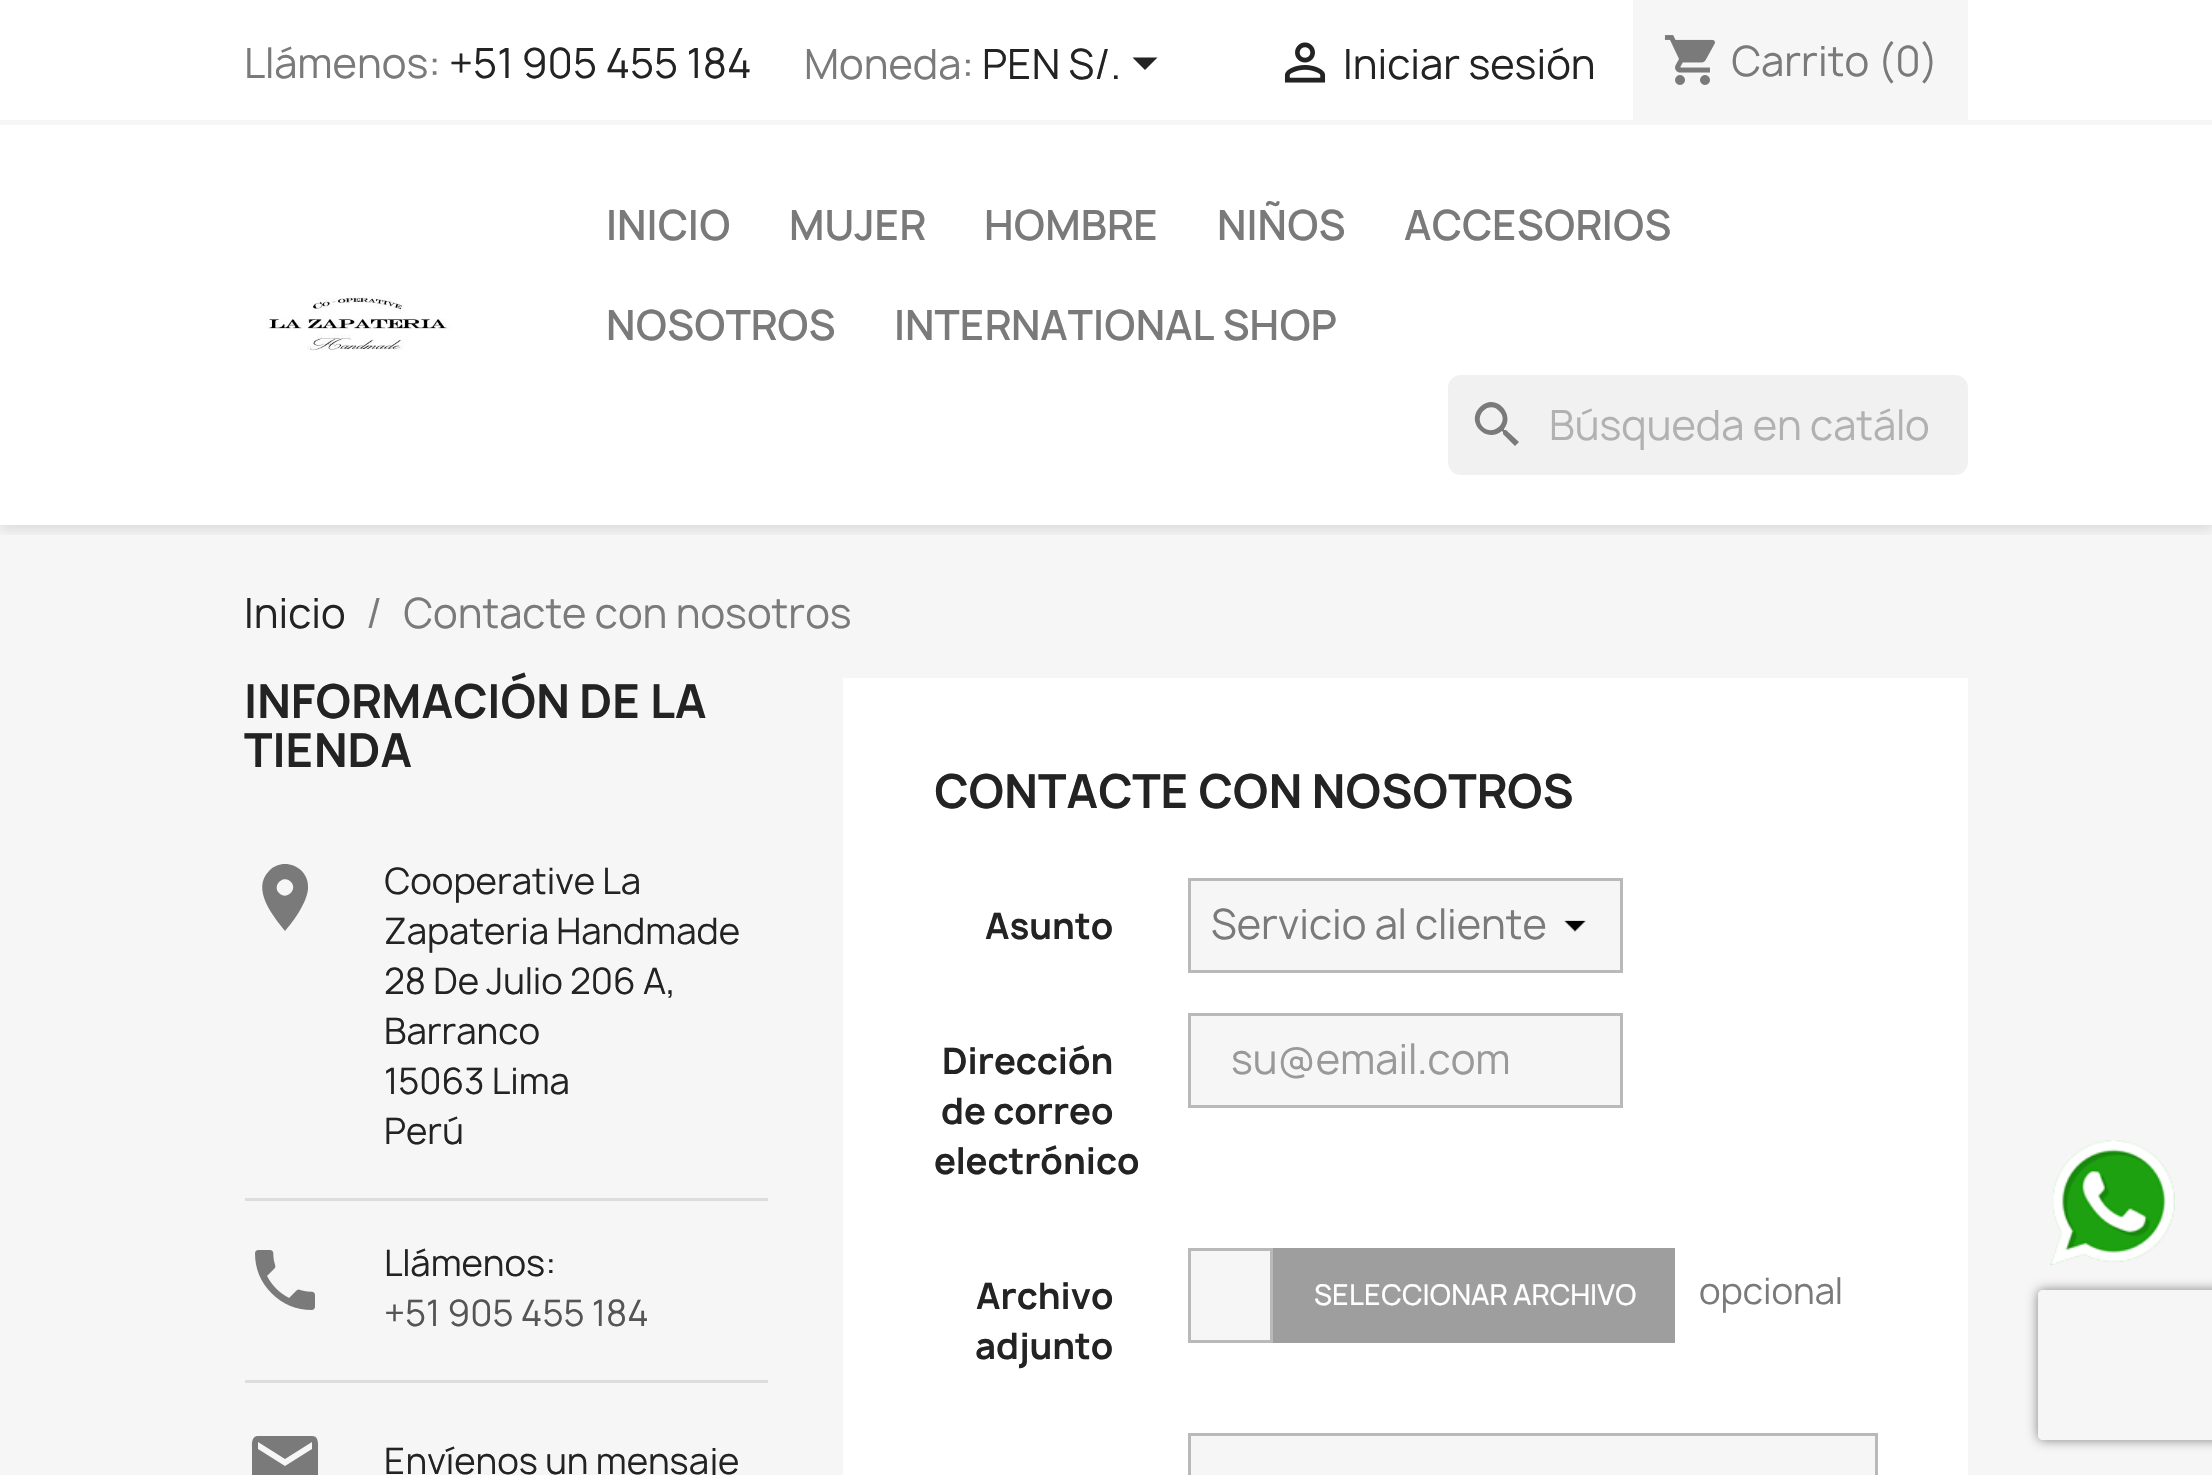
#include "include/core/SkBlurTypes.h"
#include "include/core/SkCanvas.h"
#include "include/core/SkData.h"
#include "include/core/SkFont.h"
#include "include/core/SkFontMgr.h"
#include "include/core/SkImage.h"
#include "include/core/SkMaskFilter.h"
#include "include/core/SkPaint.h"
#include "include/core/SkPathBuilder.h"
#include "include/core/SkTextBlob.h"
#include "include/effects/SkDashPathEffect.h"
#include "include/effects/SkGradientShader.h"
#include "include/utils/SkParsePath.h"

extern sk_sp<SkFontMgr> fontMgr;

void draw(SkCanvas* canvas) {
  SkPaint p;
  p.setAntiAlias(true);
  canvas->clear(SK_ColorWHITE);
  p.setColor(SkColorSetRGB(246, 246, 246));
  canvas->drawRect(SkRect::MakeLTRB(0, 525, 2212, 1475), p);
  canvas->save();
  canvas->clipRect(SkRect::MakeLTRB(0, 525, 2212, 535));
  p.setColor(SkColorSetARGB(28, 0, 0, 0));
  p.setMaskFilter(SkMaskFilter::MakeBlur(kNormal_SkBlurStyle, 6));
  canvas->drawRect(SkRect::MakeLTRB(0, 5, 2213, 530), p);
  p.setMaskFilter(nullptr);
  canvas->restore();
  p.setColor(SkColorSetRGB(246, 246, 246));
  canvas->drawRect(SkRect::MakeLTRB(0, 120, 2212, 125), p);
  p.setColor(SkColorSetRGB(35, 35, 35));
  canvas->drawPath(SkPathBuilder().moveTo(1132.5f, 57.5f).lineTo(1157.5f, 57.5f).lineTo(1145, 70).close().detach(), p);
  canvas->drawImageRect(SkImages::DeferredFromEncodedData(SkData::MakeFromFileName("images/1.png")), SkRect::MakeLTRB(1284, 42, 1326, 83), SkSamplingOptions());
  p.setColor(SkColorSetRGB(246, 246, 246));
  canvas->drawRect(SkRect::MakeLTRB(1633, 0, 1968, 120), p);
  canvas->drawImageRect(SkImages::DeferredFromEncodedData(SkData::MakeFromFileName("images/2.png")), SkRect::MakeLTRB(1664, 35, 1715, 85), SkSamplingOptions());
  canvas->drawImageRect(SkImages::DeferredFromEncodedData(SkData::MakeFromFileName("images/3.png")), SkRect::MakeLTRB(266, 297, 451, 351), SkSamplingOptions());
  p.setColor(SkColorSetRGB(241, 241, 241));
  canvas->drawRoundRect(SkRect::MakeLTRB(1448, 375, 1968, 475), 13, 13, p);
  p.setColor(SkColorSetRGB(122, 122, 122));
  canvas->drawPath(SkPathBuilder().moveTo(1483, 427).cubicTo(1494, 437, 1510, 421, 1499, 411).cubicTo(1489, 400, 1473, 416, 1483, 427).close().moveTo(1506, 430).lineTo(1519, 442).lineTo(1515, 446).lineTo(1503, 434).lineTo(1503, 432).lineTo(1502, 431).cubicTo(1486, 444, 1465, 422, 1480, 407).cubicTo(1495, 392, 1516, 414, 1504, 429).lineTo(1504, 430).close().detach(), p);
  canvas->drawPath(SkPathBuilder().moveTo(279, 893).cubicTo(287, 901, 298, 889, 291, 882).cubicTo(283, 874, 272, 886, 279, 893).close().moveTo(269, 871).cubicTo(283, 856, 310, 867, 308, 889).cubicTo(307, 902, 294, 921, 285, 931).cubicTo(273, 916, 251, 889, 269, 871).close().detach(), p);
  p.setColor(SkColorSetRGB(221, 221, 221));
  canvas->drawRect(SkRect::MakeLTRB(245, 1198, 768, 1201), p);
  canvas->drawImageRect(SkImages::DeferredFromEncodedData(SkData::MakeFromFileName("images/4.png")), SkRect::MakeLTRB(255, 1250, 315, 1310), SkSamplingOptions());
  canvas->drawRect(SkRect::MakeLTRB(245, 1380, 768, 1383), p);
  p.setColor(SkColorSetRGB(122, 122, 122));
  canvas->drawPath(SkPathBuilder().moveTo(312, 1449).lineTo(312, 1442).lineTo(285, 1459).lineTo(258, 1442).lineTo(258, 1449).lineTo(285, 1466).close().moveTo(312, 1436).cubicTo(319, 1436, 318, 1444, 318, 1449).lineTo(318, 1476).cubicTo(318, 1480, 319, 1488, 313, 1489).lineTo(258, 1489).cubicTo(251, 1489, 252, 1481, 252, 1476).lineTo(252, 1449).cubicTo(252, 1445, 251, 1437, 257, 1436).close().detach(), p);
  p.setColor(SK_ColorWHITE);
  canvas->drawRect(SkRect::MakeLTRB(843, 678, 1968, 1475), p);
  p.setColor(SkColorSetRGB(246, 246, 246));
  canvas->drawRect(SkRect::MakeLTRB(1191, 881, 1620, 970), p);
  canvas->drawImageRect(SkImages::DeferredFromEncodedData(SkData::MakeFromFileName("images/5.png")), SkRect::MakeLTRB(1564, 920, 1586, 932), SkSamplingOptions());
  p.setStyle(SkPaint::kStroke_Style);
  p.setStrokeWidth(3);
  p.setColor(SkColorSetRGB(185, 185, 185));
  canvas->drawRect(SkRect::MakeLTRB(1189.5f, 879.5f, 1621.5f, 971.5f), p);
  p.setStyle(SkPaint::kFill_Style);
  p.setColor(SkColorSetRGB(246, 246, 246));
  canvas->drawRect(SkRect::MakeLTRB(1189.5f, 1014.5f, 1621.5f, 1106.5f), p);
  p.setStyle(SkPaint::kStroke_Style);
  p.setColor(SkColorSetRGB(185, 185, 185));
  canvas->drawRect(SkRect::MakeLTRB(1189.5f, 1014.5f, 1621.5f, 1106.5f), p);
  p.setStyle(SkPaint::kFill_Style);
  p.setColor(SkColorSetRGB(246, 246, 246));
  canvas->drawRect(SkRect::MakeLTRB(1189.5f, 1249.5f, 1271.5f, 1341.5f), p);
  p.setStyle(SkPaint::kStroke_Style);
  p.setColor(SkColorSetRGB(185, 185, 185));
  canvas->drawRect(SkRect::MakeLTRB(1189.5f, 1249.5f, 1271.5f, 1341.5f), p);
  p.setStyle(SkPaint::kFill_Style);
  p.setColor(SkColorSetRGB(158, 158, 158));
  canvas->drawRect(SkRect::MakeLTRB(1273, 1248, 1675, 1343), p);
  canvas->save();
  canvas->clipPath(SkPathBuilder(SkPathFillType::kEvenOdd).moveTo(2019, 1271).lineTo(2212, 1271).lineTo(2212, 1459).lineTo(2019, 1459).close().moveTo(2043, 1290).lineTo(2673, 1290).cubicTo(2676, 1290, 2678, 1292, 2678, 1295).lineTo(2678, 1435).cubicTo(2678, 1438, 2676, 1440, 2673, 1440).lineTo(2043, 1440).cubicTo(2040, 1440, 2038, 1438, 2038, 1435).lineTo(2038, 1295).cubicTo(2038, 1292, 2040, 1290, 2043, 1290).close().detach(), true);
  p.setColor(SkColorSetRGB(128, 128, 128));
  p.setMaskFilter(SkMaskFilter::MakeBlur(kNormal_SkBlurStyle, 6));
  canvas->drawRoundRect(SkRect::MakeLTRB(2038, 1290, 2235, 1440), 5, 5, p);
  p.setMaskFilter(nullptr);
  canvas->restore();
  p.setColor(SkColorSetRGB(246, 246, 246));
  canvas->drawRect(SkRect::MakeLTRB(1189.5f, 1434.5f, 1876.5f, 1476.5f), p);
  p.setStyle(SkPaint::kStroke_Style);
  p.setColor(SkColorSetRGB(185, 185, 185));
  canvas->drawRect(SkRect::MakeLTRB(1189.5f, 1434.5f, 1876.5f, 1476.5f), p);
  canvas->drawImageRect(SkImages::DeferredFromEncodedData(SkData::MakeFromFileName("images/6.png")), SkRect::MakeLTRB(2050, 1140, 2175, 1265), SkSamplingOptions());
  SkFont font1(fontMgr->matchFamilyStyle("Manrope", SkFontStyle::Normal()), 40);
  font1.setSubpixel(true);
  p.setStyle(SkPaint::kFill_Style);
  p.setColor(SkColorSetRGB(122, 122, 122));
  canvas->drawString("Llámenos:", 244, 78, font1, p);
  p.setColor(SkColorSetRGB(35, 35, 35));
  canvas->drawString("+51 905 455 184", 449, 78, font1, p);
  p.setColor(SkColorSetRGB(122, 122, 122));
  canvas->drawString("Moneda:", 804, 79, font1, p);
  p.setColor(SkColorSetRGB(35, 35, 35));
  canvas->drawString("PEN S/.", 982, 79, font1, p);
  canvas->drawString("Iniciar sesión", 1343, 79, font1, p);
  p.setColor(SkColorSetRGB(122, 122, 122));
  canvas->drawString("Carrito (0)", 1731, 76, font1, p);
  SkFont font2(fontMgr->matchFamilyStyle("Manrope", SkFontStyle(600, SkFontStyle::kNormal_Width, SkFontStyle::kUpright_Slant)), 40);
  font2.setSubpixel(true);
  canvas->drawString("INICIO", 606, 240, font2, p);
  canvas->drawString("MUJER", 789, 240, font2, p);
  canvas->drawString("HOMBRE", 984, 240, font2, p);
  canvas->drawString("NIÑOS", 1217, 240, font2, p);
  canvas->drawString("ACCESORIOS", 1404, 240, font2, p);
  canvas->drawString("NOSOTROS", 606, 340, font2, p);
  canvas->drawString("INTERNATIONAL SHOP", 894, 340, font2, p);
  p.setColor(SkColorSetRGB(177, 177, 177));
  canvas->drawString("Búsqueda en catálo", 1549, 440, font1, p);
  p.setColor(SkColorSetRGB(35, 35, 35));
  canvas->drawString("Inicio", 244, 628, font1, p);
  p.setColor(SkColorSetRGB(122, 122, 122));
  canvas->drawString("/", 366, 628, font1, p);
  canvas->drawString("Contacte con nosotros", 403, 628, font1, p);
  SkFont font3(fontMgr->matchFamilyStyle("Manrope", SkFontStyle::Bold()), 45);
  font3.setSubpixel(true);
  p.setColor(SkColorSetRGB(35, 35, 35));
  canvas->drawString("INFORMACIÓN DE LA", 244, 718, font3, p);
  canvas->drawString("TIENDA", 244, 767, font3, p);
  SkFont font4(fontMgr->matchFamilyStyle("Manrope", SkFontStyle::Normal()), 35);
  font4.setSubpixel(true);
  canvas->drawString("Cooperative La", 384, 894, font4, p);
  canvas->drawString("Zapateria Handmade", 384, 944, font4, p);
  canvas->drawString("28 De Julio 206 A,", 384, 994, font4, p);
  canvas->drawString("Barranco", 384, 1044, font4, p);
  canvas->drawString("15063 Lima", 384, 1094, font4, p);
  canvas->drawString("Perú", 384, 1144, font4, p);
  canvas->drawString("Llámenos:", 384, 1276, font4, p);
  p.setColor(SkColorSetRGB(85, 85, 85));
  canvas->drawString("+51 905 455 184", 384, 1326, font4, p);
  p.setColor(SkColorSetRGB(35, 35, 35));
  canvas->drawString("Envíenos un mensaje", 384, 1474, font4, p);
  canvas->drawString("CONTACTE CON NOSOTROS", 934, 808, font3, p);
  SkFont font5(fontMgr->matchFamilyStyle("Manrope", SkFontStyle::Bold()), 35);
  font5.setSubpixel(true);
  canvas->drawString("Asunto", 985, 939, font5, p);
  p.setColor(SkColorSetRGB(122, 122, 122));
  canvas->drawString("Servicio al cliente", 1211, 939, font1, p);
  p.setColor(SkColorSetRGB(35, 35, 35));
  canvas->drawString("Dirección", 942, 1074, font5, p);
  canvas->drawString("de correo", 941, 1124, font5, p);
  canvas->drawString("electrónico", 934, 1174, font5, p);
  p.setColor(SkColorSetRGB(153, 153, 153));
  canvas->drawString("su@email.com", 1231, 1074, font1, p);
  p.setColor(SkColorSetRGB(35, 35, 35));
  canvas->drawString("Archivo", 976, 1309, font5, p);
  canvas->drawString("adjunto", 975, 1359, font5, p);
  SkFont font6(fontMgr->matchFamilyStyle("Manrope", SkFontStyle(500, SkFontStyle::kNormal_Width, SkFontStyle::kUpright_Slant)), 27.5f);
  font6.setSubpixel(true);
  p.setColor(SK_ColorWHITE);
  canvas->drawString("SELECCIONAR ARCHIVO", 1314, 1305, font6, p);
  p.setColor(SkColorSetRGB(122, 122, 122));
  canvas->drawString("opcional", 1699, 1304, font4, p);
}
